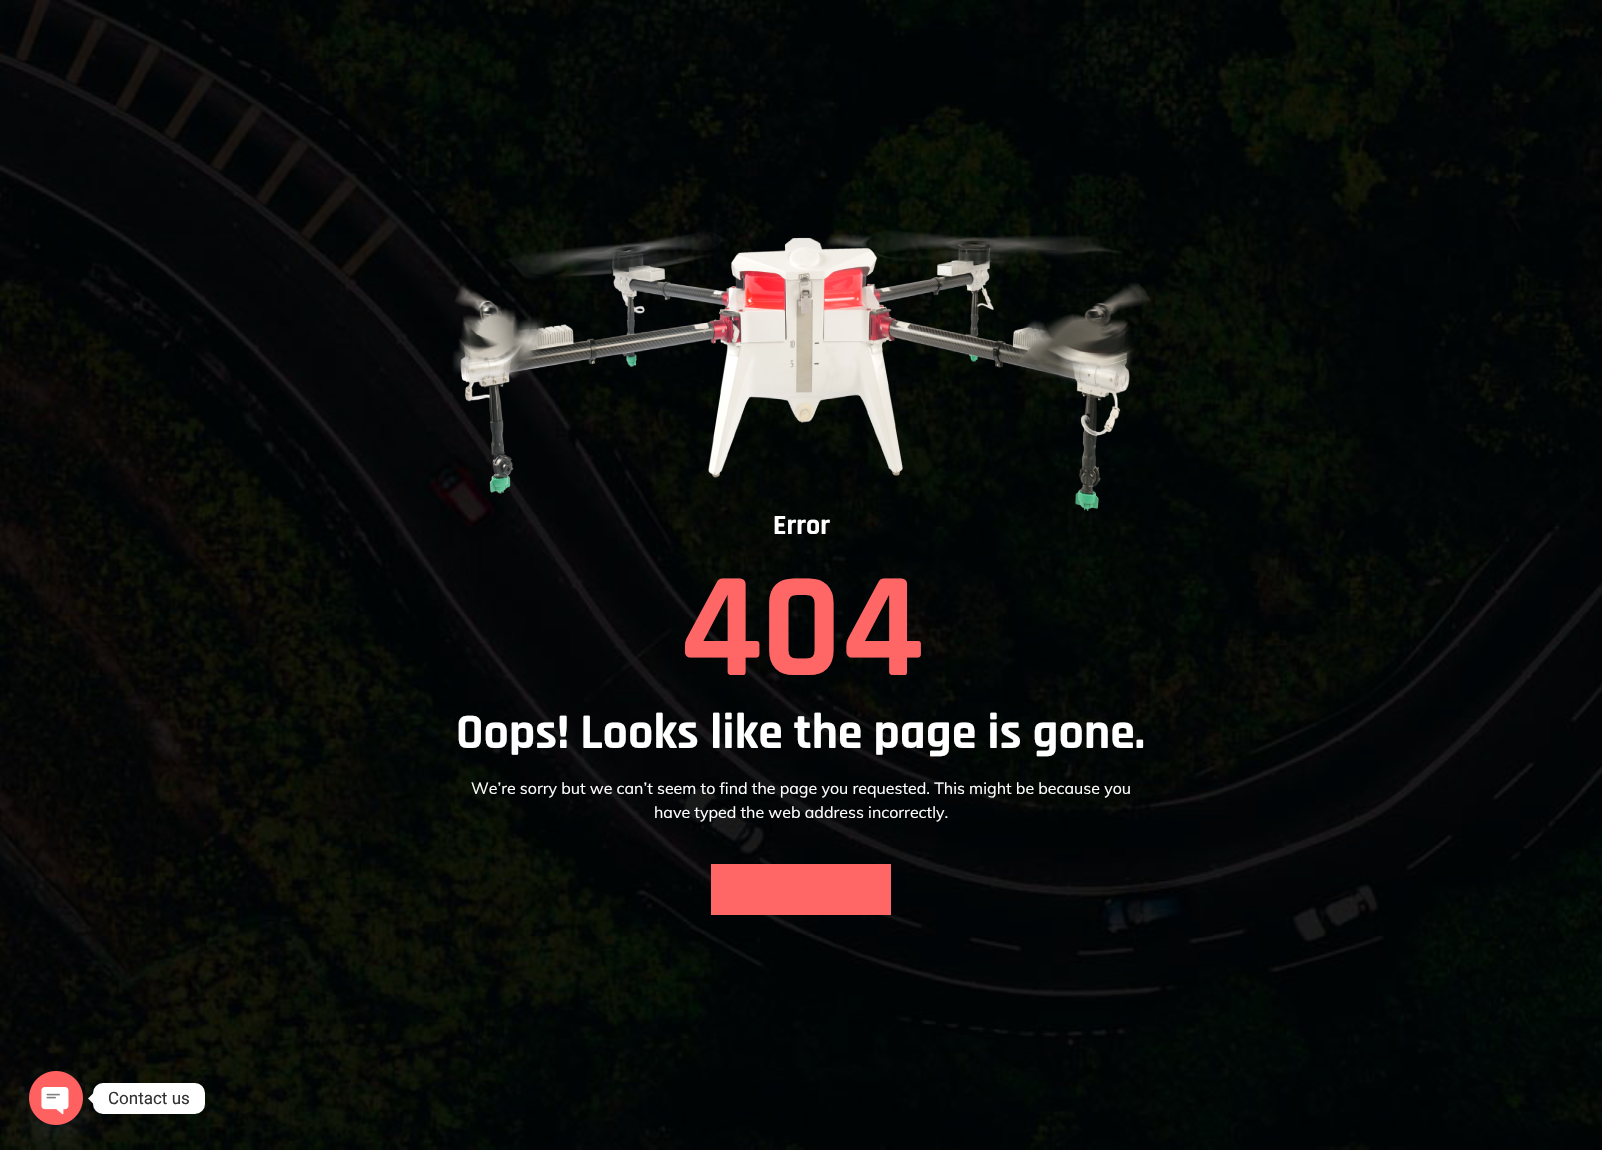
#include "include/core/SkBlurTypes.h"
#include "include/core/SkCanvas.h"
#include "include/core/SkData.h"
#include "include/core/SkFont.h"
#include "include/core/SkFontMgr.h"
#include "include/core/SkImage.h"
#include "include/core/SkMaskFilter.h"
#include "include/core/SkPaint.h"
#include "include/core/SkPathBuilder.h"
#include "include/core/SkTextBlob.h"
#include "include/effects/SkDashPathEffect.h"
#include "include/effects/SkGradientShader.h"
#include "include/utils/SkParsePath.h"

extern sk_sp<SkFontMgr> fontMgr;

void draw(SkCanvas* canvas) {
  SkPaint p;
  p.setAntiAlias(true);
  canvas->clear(SK_ColorWHITE);
  canvas->drawImageRect(SkImages::DeferredFromEncodedData(SkData::MakeFromFileName("images/1.png")), SkRect::MakeLTRB(0, 0, 1602, 1150), SkSamplingOptions());
  canvas->drawImageRect(SkImages::DeferredFromEncodedData(SkData::MakeFromFileName("images/2.png")), SkRect::MakeLTRB(452, 230, 1151, 511), SkSamplingOptions());
  p.setColor(SkColorSetRGB(255, 102, 102));
  canvas->drawRect(SkRect::MakeLTRB(711, 864, 891, 915), p);
  p.setColor(SK_ColorWHITE);
  canvas->drawRoundRect(SkRect::MakeLTRB(93, 1083, 205, 1114), 10, 10, p);
  canvas->drawPath(SkPathBuilder().moveTo(93, 1093.5f).lineTo(93, 1103.5f).lineTo(88, 1098.5f).close().detach(), p);
  p.setColor(SkColorSetARGB(41, 73, 104, 126));
  p.setMaskFilter(SkMaskFilter::MakeBlur(kNormal_SkBlurStyle, 12));
  canvas->drawRoundRect(SkRect::MakeLTRB(29, 1087, 83, 1141), 27, 27, p);
  p.setMaskFilter(nullptr);
  canvas->drawImageRect(SkImages::DeferredFromEncodedData(SkData::MakeFromFileName("images/3.png")), SkRect::MakeLTRB(29, 1071, 83, 1125), SkSamplingOptions());
  SkFont font1(fontMgr->matchFamilyStyle("Rajdhani", SkFontStyle::Bold()), 28);
  font1.setSubpixel(true);
  p.setColor(SK_ColorWHITE);
  canvas->drawString("Error", 773, 534, font1, p);
  SkFont font2(fontMgr->matchFamilyStyle("Rajdhani", SkFontStyle::Bold()), 150);
  font2.setSubpixel(true);
  p.setColor(SkColorSetRGB(255, 102, 102));
  canvas->drawString("404", 680, 675, font2, p);
  SkFont font3(fontMgr->matchFamilyStyle("Rajdhani", SkFontStyle::Bold()), 50);
  font3.setSubpixel(true);
  p.setColor(SK_ColorWHITE);
  canvas->drawString("Oops! Looks like the page is gone.", 456, 748, font3, p);
  SkFont font4(fontMgr->matchFamilyStyle("Muli", SkFontStyle::Normal()), 16);
  font4.setSubpixel(true);
  canvas->drawString("We’re sorry but we can’t seem to find the page you requested. This might be because you", 471, 794, font4, p);
  canvas->drawString("have typed the web address incorrectly.", 654, 818, font4, p);
  SkFont font5(fontMgr->matchFamilyStyle("Roboto", SkFontStyle::Normal()), 17);
  font5.setSubpixel(true);
  p.setColor(SkColorSetRGB(51, 51, 51));
  canvas->drawString("Contact us", 108, 1104, font5, p);
}
